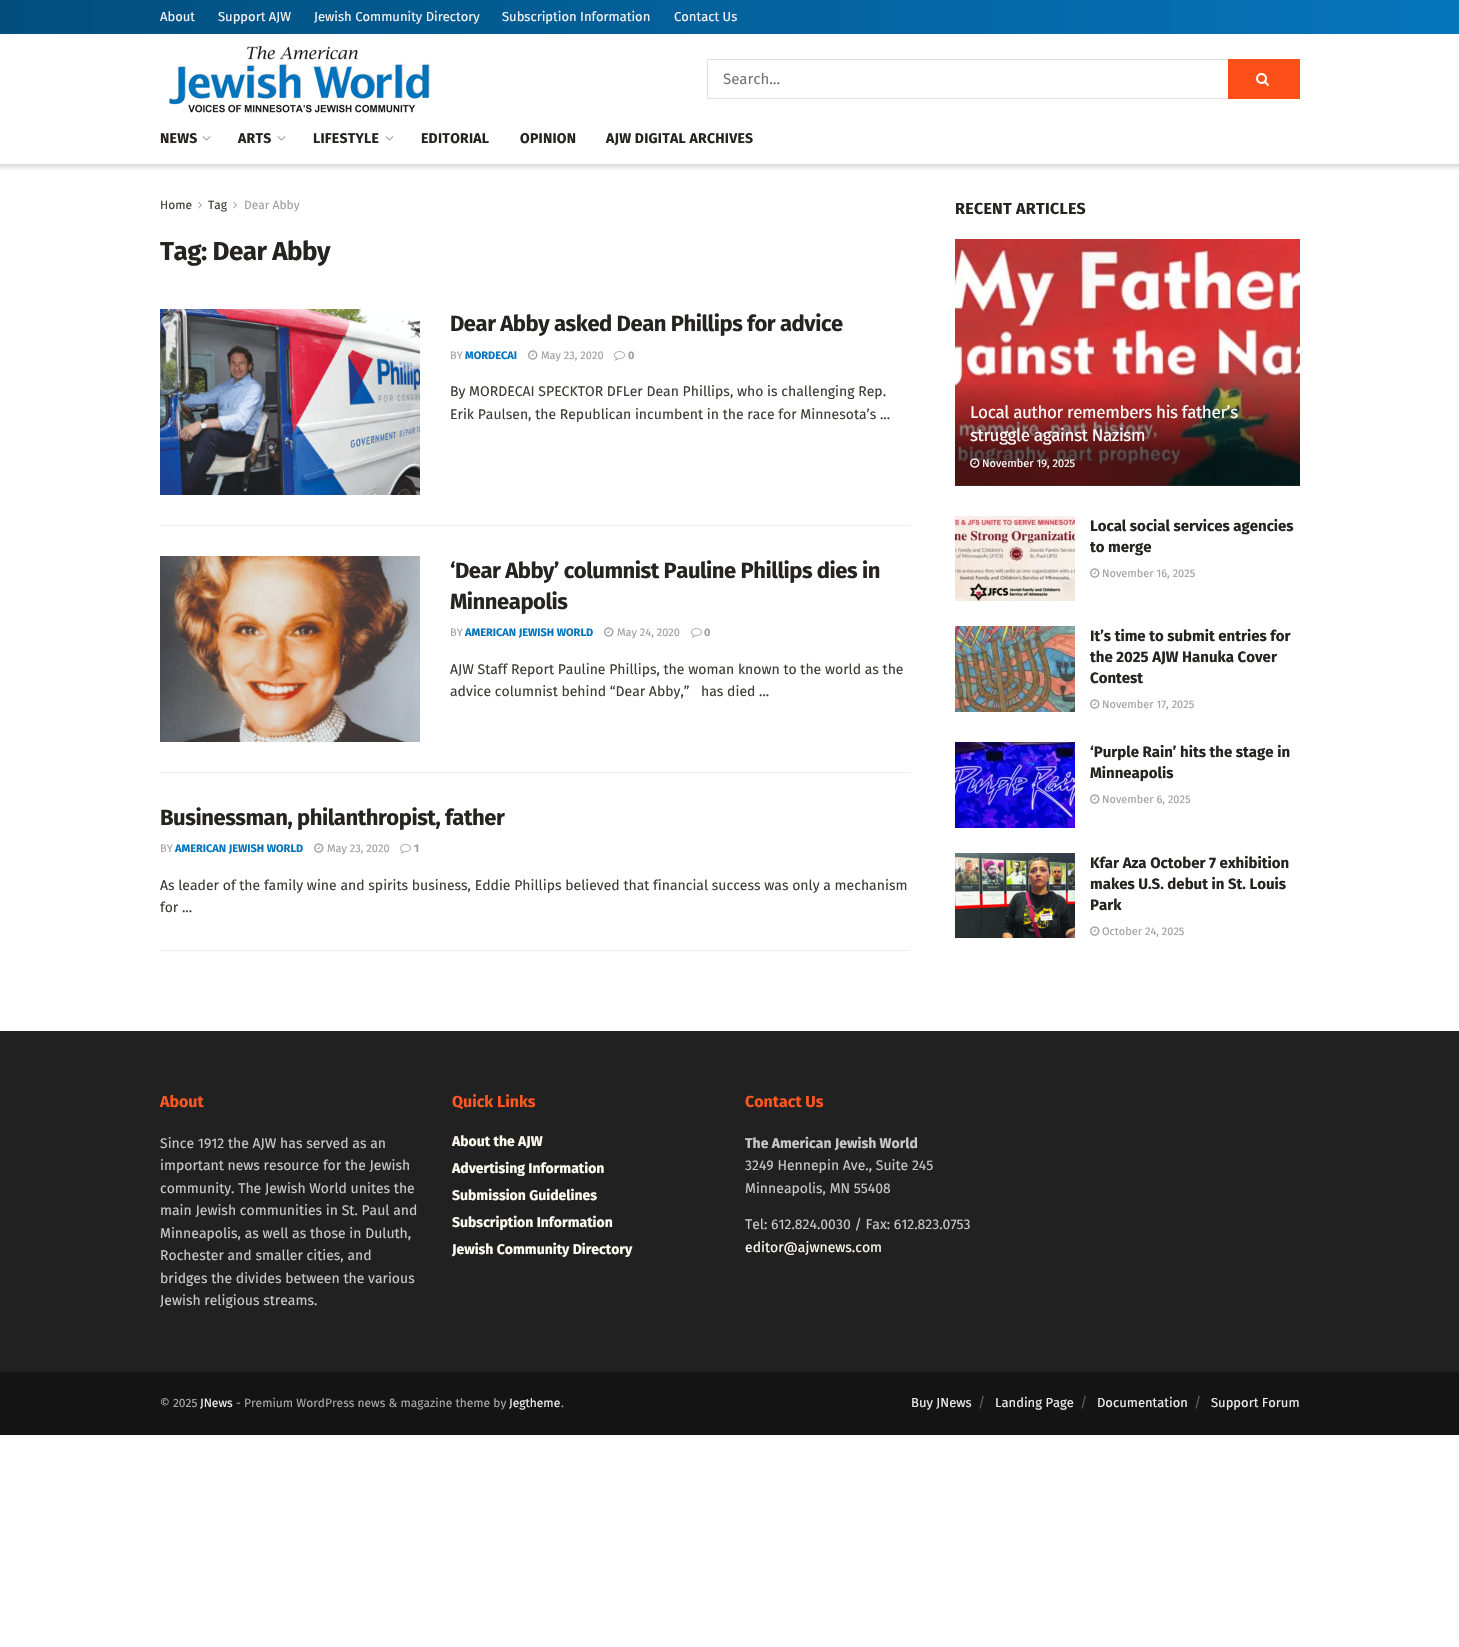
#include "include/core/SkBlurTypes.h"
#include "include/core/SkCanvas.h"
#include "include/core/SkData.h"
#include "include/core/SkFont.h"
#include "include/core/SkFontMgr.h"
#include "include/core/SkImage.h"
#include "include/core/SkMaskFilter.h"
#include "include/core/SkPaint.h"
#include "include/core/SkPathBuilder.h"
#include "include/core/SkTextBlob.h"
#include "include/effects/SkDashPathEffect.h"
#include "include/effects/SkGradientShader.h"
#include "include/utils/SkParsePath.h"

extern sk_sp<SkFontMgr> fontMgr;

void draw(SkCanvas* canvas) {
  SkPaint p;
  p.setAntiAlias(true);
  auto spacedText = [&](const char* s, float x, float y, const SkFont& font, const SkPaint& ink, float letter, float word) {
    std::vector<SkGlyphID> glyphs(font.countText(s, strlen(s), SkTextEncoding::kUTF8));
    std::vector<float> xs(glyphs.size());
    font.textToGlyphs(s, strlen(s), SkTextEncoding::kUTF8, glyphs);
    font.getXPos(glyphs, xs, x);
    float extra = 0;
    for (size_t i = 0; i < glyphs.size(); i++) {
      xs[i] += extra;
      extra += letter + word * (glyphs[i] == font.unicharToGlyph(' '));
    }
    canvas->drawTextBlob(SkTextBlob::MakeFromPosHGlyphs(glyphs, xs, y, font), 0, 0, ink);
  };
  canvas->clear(SK_ColorWHITE);
  {
    const SkColor colors[] = {SkColorSetRGB(1, 78, 125), SkColorSetRGB(6, 117, 188)};
    const float stops[] = {0, 1};
    const SkPoint ends[] = {{0, 17}, {1459, 17}};
    p.setShader(SkGradientShader::MakeLinear(ends, colors, stops, 2, SkTileMode::kClamp));
    p.setAlpha(255);
  }
  canvas->drawRect(SkRect::MakeLTRB(0, 0, 1459, 34), p);
  canvas->drawImageRect(SkImages::DeferredFromEncodedData(SkData::MakeFromFileName("images/1.png")), SkRect::MakeLTRB(169, 45, 430, 113), SkSamplingOptions());
  p.setStyle(SkPaint::kStroke_Style);
  p.setStrokeWidth(1);
  p.setShader(nullptr);
  p.setColor(SkColorSetRGB(224, 224, 224));
  canvas->drawRect(SkRect::MakeLTRB(707.5f, 59.5f, 1299.5f, 98.5f), p);
  p.setStyle(SkPaint::kFill_Style);
  p.setColor(SkColorSetRGB(253, 79, 24));
  canvas->drawRect(SkRect::MakeLTRB(1228, 59, 1300, 99), p);
  canvas->drawImageRect(SkImages::DeferredFromEncodedData(SkData::MakeFromFileName("images/2.png")), SkRect::MakeLTRB(1256, 73, 1269, 86), SkSamplingOptions());
  canvas->drawImageRect(SkImages::DeferredFromEncodedData(SkData::MakeFromFileName("images/3.png")), SkRect::MakeLTRB(202, 136, 211, 141), SkSamplingOptions());
  canvas->drawImageRect(SkImages::DeferredFromEncodedData(SkData::MakeFromFileName("images/3.png")), SkRect::MakeLTRB(277, 136, 286, 141), SkSamplingOptions());
  canvas->drawImageRect(SkImages::DeferredFromEncodedData(SkData::MakeFromFileName("images/3.png")), SkRect::MakeLTRB(385, 136, 394, 141), SkSamplingOptions());
  {
    const SkColor colors[] = {SkColorSetRGB(217, 217, 217), SK_ColorWHITE};
    const float stops[] = {0, 1};
    const SkPoint ends[] = {{730, 164}, {730, 171}};
    p.setShader(SkGradientShader::MakeLinear(ends, colors, stops, 2, SkTileMode::kClamp));
    p.setAlpha(255);
  }
  canvas->drawRect(SkRect::MakeLTRB(0, 164, 1459, 171), p);
  canvas->drawImageRect(SkImages::DeferredFromEncodedData(SkData::MakeFromFileName("images/4.png")), SkRect::MakeLTRB(198, 201, 202, 209), SkSamplingOptions());
  canvas->drawImageRect(SkImages::DeferredFromEncodedData(SkData::MakeFromFileName("images/4.png")), SkRect::MakeLTRB(233, 201, 237, 209), SkSamplingOptions());
  p.setShader(nullptr);
  p.setColor(SkColorSetRGB(238, 238, 238));
  canvas->drawRect(SkRect::MakeLTRB(160, 525, 910, 526), p);
  canvas->drawImageRect(SkImages::DeferredFromEncodedData(SkData::MakeFromFileName("images/5.png")), SkRect::MakeLTRB(160, 309, 420, 495), SkSamplingOptions());
  canvas->drawImageRect(SkImages::DeferredFromEncodedData(SkData::MakeFromFileName("images/6.png")), SkRect::MakeLTRB(528, 350, 538, 360), SkSamplingOptions());
  canvas->drawImageRect(SkImages::DeferredFromEncodedData(SkData::MakeFromFileName("images/7.png")), SkRect::MakeLTRB(614, 351, 625, 361), SkSamplingOptions());
  canvas->drawRect(SkRect::MakeLTRB(160, 772, 910, 773), p);
  canvas->drawImageRect(SkImages::DeferredFromEncodedData(SkData::MakeFromFileName("images/8.png")), SkRect::MakeLTRB(160, 556, 420, 742), SkSamplingOptions());
  canvas->drawImageRect(SkImages::DeferredFromEncodedData(SkData::MakeFromFileName("images/6.png")), SkRect::MakeLTRB(604, 627, 614, 637), SkSamplingOptions());
  canvas->drawImageRect(SkImages::DeferredFromEncodedData(SkData::MakeFromFileName("images/7.png")), SkRect::MakeLTRB(691, 628, 702, 638), SkSamplingOptions());
  canvas->drawRect(SkRect::MakeLTRB(160, 950, 910, 951), p);
  canvas->drawImageRect(SkImages::DeferredFromEncodedData(SkData::MakeFromFileName("images/6.png")), SkRect::MakeLTRB(314, 843, 324, 853), SkSamplingOptions());
  canvas->drawImageRect(SkImages::DeferredFromEncodedData(SkData::MakeFromFileName("images/7.png")), SkRect::MakeLTRB(400, 844, 411, 854), SkSamplingOptions());
  canvas->drawImageRect(SkImages::DeferredFromEncodedData(SkData::MakeFromFileName("images/9.png")), SkRect::MakeLTRB(955, 239, 1300, 486), SkSamplingOptions());
  {
    const SkColor colors[] = {SkColorSetARGB(0, 0, 0, 0), SkColorSetARGB(166, 0, 0, 0)};
    const float stops[] = {0, 0.7f};
    const SkPoint ends[] = {{1128, 381}, {1128, 486}};
    p.setShader(SkGradientShader::MakeLinear(ends, colors, stops, 2, SkTileMode::kClamp));
    p.setAlpha(255);
  }
  canvas->drawRect(SkRect::MakeLTRB(955, 383, 1300, 486), p);
  canvas->drawImageRect(SkImages::DeferredFromEncodedData(SkData::MakeFromFileName("images/10.png")), SkRect::MakeLTRB(970, 458, 980, 468), SkSamplingOptions());
  canvas->drawImageRect(SkImages::DeferredFromEncodedData(SkData::MakeFromFileName("images/11.png")), SkRect::MakeLTRB(955, 516, 1075, 601), SkSamplingOptions());
  canvas->drawImageRect(SkImages::DeferredFromEncodedData(SkData::MakeFromFileName("images/6.png")), SkRect::MakeLTRB(1090, 568, 1100, 578), SkSamplingOptions());
  canvas->drawImageRect(SkImages::DeferredFromEncodedData(SkData::MakeFromFileName("images/12.png")), SkRect::MakeLTRB(955, 626, 1075, 712), SkSamplingOptions());
  canvas->drawImageRect(SkImages::DeferredFromEncodedData(SkData::MakeFromFileName("images/6.png")), SkRect::MakeLTRB(1090, 699, 1100, 709), SkSamplingOptions());
  canvas->drawImageRect(SkImages::DeferredFromEncodedData(SkData::MakeFromFileName("images/13.png")), SkRect::MakeLTRB(955, 742, 1075, 828), SkSamplingOptions());
  canvas->drawImageRect(SkImages::DeferredFromEncodedData(SkData::MakeFromFileName("images/6.png")), SkRect::MakeLTRB(1090, 794, 1100, 804), SkSamplingOptions());
  canvas->drawImageRect(SkImages::DeferredFromEncodedData(SkData::MakeFromFileName("images/14.png")), SkRect::MakeLTRB(955, 853, 1075, 938), SkSamplingOptions());
  canvas->drawImageRect(SkImages::DeferredFromEncodedData(SkData::MakeFromFileName("images/6.png")), SkRect::MakeLTRB(1090, 926, 1100, 936), SkSamplingOptions());
  p.setShader(nullptr);
  p.setColor(SkColorSetRGB(33, 33, 33));
  canvas->drawRect(SkRect::MakeLTRB(0, 1031, 1459, 1372), p);
  p.setColor(SkColorSetRGB(20, 20, 20));
  canvas->drawRect(SkRect::MakeLTRB(0, 1372, 1459, 1435), p);
  SkFont font1(fontMgr->matchFamilyStyle("Fira Sans", SkFontStyle::Normal()), 13);
  font1.setSubpixel(true);
  p.setColor(SkColorSetRGB(245, 245, 245));
  canvas->drawString("About", 160, 21, font1, p);
  canvas->drawString("Support AJW", 218, 21, font1, p);
  canvas->drawString("Jewish Community Directory", 314, 21, font1, p);
  canvas->drawString("Subscription Information", 502, 21, font1, p);
  canvas->drawString("Contact Us", 674, 21, font1, p);
  SkFont font2(fontMgr->matchFamilyStyle("Fira Sans", SkFontStyle::Normal()), 15);
  font2.setSubpixel(true);
  p.setColor(SkColorSetRGB(117, 117, 117));
  canvas->drawString("Search...", 723, 84, font2, p);
  SkFont font3(fontMgr->matchFamilyStyle("Fira Sans", SkFontStyle::Bold()), 14);
  font3.setSubpixel(true);
  p.setColor(SkColorSetRGB(37, 36, 34));
  spacedText("NEWS", 160, 143, font3, p, 0.25f, 0);
  spacedText("ARTS", 238, 143, font3, p, 0.25f, 0);
  spacedText("LIFESTYLE", 313, 143, font3, p, 0.25f, 0);
  spacedText("EDITORIAL", 421, 143, font3, p, 0.25f, 0);
  spacedText("OPINION", 520, 143, font3, p, 0.25f, 0);
  spacedText("AJW DIGITAL ARCHIVES", 606, 143, font3, p, 0.25f, 0);
  SkFont font4(fontMgr->matchFamilyStyle("Fira Sans", SkFontStyle::Normal()), 12);
  font4.setSubpixel(true);
  p.setColor(SkColorSetRGB(64, 61, 57));
  canvas->drawString("Home", 160, 209, font4, p);
  canvas->drawString("Tag", 208, 209, font4, p);
  p.setColor(SkColorSetRGB(160, 160, 160));
  canvas->drawString("Dear Abby", 244, 209, font4, p);
  SkFont font5(fontMgr->matchFamilyStyle("Fira Sans", SkFontStyle::Bold()), 26);
  font5.setSubpixel(true);
  p.setColor(SkColorSetRGB(37, 36, 34));
  spacedText("Tag: Dear Abby", 160, 260, font5, p, -0.5f, 0);
  SkFont font6(fontMgr->matchFamilyStyle("Fira Sans", SkFontStyle::Bold()), 22);
  font6.setSubpixel(true);
  spacedText("Dear Abby asked Dean Phillips for advice", 450, 331, font6, p, -0.45f, 0);
  SkFont font7(fontMgr->matchFamilyStyle("Fira Sans", SkFontStyle::Normal()), 11);
  font7.setSubpixel(true);
  p.setColor(SkColorSetRGB(160, 160, 160));
  canvas->drawString("BY", 450, 359, font7, p);
  SkFont font8(fontMgr->matchFamilyStyle("Fira Sans", SkFontStyle::Bold()), 11);
  font8.setSubpixel(true);
  p.setColor(SkColorSetRGB(6, 117, 188));
  canvas->drawString("MORDECAI", 465, 359, font8, p);
  p.setColor(SkColorSetRGB(160, 160, 160));
  canvas->drawString("May 23, 2020", 541, 359, font7, p);
  canvas->drawString("0", 628, 359, font8, p);
  SkFont font9(fontMgr->matchFamilyStyle("Fira Sans", SkFontStyle::Normal()), 14);
  font9.setSubpixel(true);
  p.setColor(SkColorSetRGB(64, 61, 57));
  canvas->drawString("By MORDECAI SPECKTOR DFLer Dean Phillips, who is challenging Rep.", 450, 396, font9, p);
  canvas->drawString("Erik Paulsen, the Republican incumbent in the race for Minnesota’s ...", 450, 419, font9, p);
  p.setColor(SkColorSetRGB(37, 36, 34));
  spacedText("‘Dear Abby’ columnist Pauline Phillips dies in", 450, 578, font6, p, -0.45f, 0);
  spacedText("Minneapolis", 450, 609, font6, p, -0.45f, 0);
  p.setColor(SkColorSetRGB(160, 160, 160));
  canvas->drawString("BY", 450, 636, font7, p);
  p.setColor(SkColorSetRGB(6, 117, 188));
  canvas->drawString("AMERICAN JEWISH WORLD", 465, 636, font8, p);
  p.setColor(SkColorSetRGB(160, 160, 160));
  canvas->drawString("May 24, 2020", 617, 636, font7, p);
  canvas->drawString("0", 704, 636, font8, p);
  p.setColor(SkColorSetRGB(64, 61, 57));
  canvas->drawString("AJW Staff Report Pauline Phillips, the woman known to the world as the", 450, 674, font9, p);
  canvas->drawString("advice columnist behind “Dear Abby,”", 450, 696, font9, p);
  canvas->drawString("has died ...", 701, 696, font9, p);
  p.setColor(SkColorSetRGB(37, 36, 34));
  spacedText("Businessman, philanthropist, father", 160, 825, font6, p, -0.45f, 0);
  p.setColor(SkColorSetRGB(160, 160, 160));
  canvas->drawString("BY", 160, 852, font7, p);
  p.setColor(SkColorSetRGB(6, 117, 188));
  canvas->drawString("AMERICAN JEWISH WORLD", 175, 852, font8, p);
  p.setColor(SkColorSetRGB(160, 160, 160));
  canvas->drawString("May 23, 2020", 327, 852, font7, p);
  canvas->drawString("1", 414, 852, font8, p);
  p.setColor(SkColorSetRGB(64, 61, 57));
  canvas->drawString("As leader of the family wine and spirits business, Eddie Phillips believed that financial success was only a mechanism", 160, 890, font9, p);
  canvas->drawString("for ...", 160, 912, font9, p);
  SkFont font10(fontMgr->matchFamilyStyle("Fira Sans", SkFontStyle::Bold()), 16);
  font10.setSubpixel(true);
  p.setColor(SkColorSetRGB(37, 36, 34));
  spacedText("RECENT ARTICLES", 955, 214, font10, p, 0.3f, 0);
  SkFont font11(fontMgr->matchFamilyStyle("Fira Sans", SkFontStyle::Normal()), 17);
  font11.setSubpixel(true);
  p.setColor(SK_ColorWHITE);
  spacedText("Local author remembers his father’s", 970, 418, font11, p, -0.35f, 0);
  spacedText("struggle against Nazism", 970, 441, font11, p, -0.35f, 0);
  canvas->drawString("November 19, 2025", 982, 467, font7, p);
  SkFont font12(fontMgr->matchFamilyStyle("Fira Sans", SkFontStyle::Bold()), 15);
  font12.setSubpixel(true);
  p.setColor(SkColorSetRGB(37, 36, 34));
  canvas->drawString("Local social services agencies", 1090, 531, font12, p);
  canvas->drawString("to merge", 1090, 552, font12, p);
  p.setColor(SkColorSetRGB(160, 160, 160));
  canvas->drawString("November 16, 2025", 1102, 577, font7, p);
  p.setColor(SkColorSetRGB(37, 36, 34));
  canvas->drawString("It’s time to submit entries for", 1090, 641, font12, p);
  canvas->drawString("the 2025 AJW Hanuka Cover", 1090, 662, font12, p);
  canvas->drawString("Contest", 1090, 683, font12, p);
  p.setColor(SkColorSetRGB(160, 160, 160));
  canvas->drawString("November 17, 2025", 1102, 708, font7, p);
  p.setColor(SkColorSetRGB(37, 36, 34));
  canvas->drawString("‘Purple Rain’ hits the stage in", 1090, 757, font12, p);
  canvas->drawString("Minneapolis", 1090, 778, font12, p);
  p.setColor(SkColorSetRGB(160, 160, 160));
  canvas->drawString("November 6, 2025", 1102, 803, font7, p);
  p.setColor(SkColorSetRGB(37, 36, 34));
  canvas->drawString("Kfar Aza October 7 exhibition", 1090, 868, font12, p);
  canvas->drawString("makes U.S. debut in St. Louis", 1090, 889, font12, p);
  canvas->drawString("Park", 1090, 910, font12, p);
  p.setColor(SkColorSetRGB(160, 160, 160));
  canvas->drawString("October 24, 2025", 1102, 935, font7, p);
  p.setColor(SkColorSetRGB(255, 87, 34));
  canvas->drawString("About", 160, 1107, font10, p);
  p.setColor(SkColorSetRGB(200, 200, 200));
  canvas->drawString("Since 1912 the AJW has served as an", 160, 1148, font9, p);
  canvas->drawString("important news resource for the Jewish", 160, 1170, font9, p);
  canvas->drawString("community. The Jewish World unites the", 160, 1193, font9, p);
  canvas->drawString("main Jewish communities in St. Paul and", 160, 1215, font9, p);
  canvas->drawString("Minneapolis, as well as those in Duluth,", 160, 1238, font9, p);
  canvas->drawString("Rochester and smaller cities, and", 160, 1260, font9, p);
  canvas->drawString("bridges the divides between the various", 160, 1283, font9, p);
  canvas->drawString("Jewish religious streams.", 160, 1305, font9, p);
  p.setColor(SkColorSetRGB(255, 87, 34));
  canvas->drawString("Quick Links", 452, 1107, font10, p);
  p.setColor(SkColorSetRGB(255, 252, 242));
  canvas->drawString("About the AJW", 452, 1146, font3, p);
  canvas->drawString("Advertising Information", 452, 1173, font3, p);
  canvas->drawString("Submission Guidelines", 452, 1200, font3, p);
  canvas->drawString("Subscription Information", 452, 1227, font3, p);
  canvas->drawString("Jewish Community Directory", 452, 1254, font3, p);
  p.setColor(SkColorSetRGB(255, 87, 34));
  canvas->drawString("Contact Us", 745, 1107, font10, p);
  p.setColor(SkColorSetRGB(200, 200, 200));
  canvas->drawString("The American Jewish World", 745, 1148, font3, p);
  canvas->drawString("3249 Hennepin Ave., Suite 245", 745, 1170, font9, p);
  canvas->drawString("Minneapolis, MN 55408", 745, 1193, font9, p);
  canvas->drawString("Tel: 612.824.0030 / Fax: 612.823.0753", 745, 1229, font9, p);
  p.setColor(SkColorSetRGB(255, 252, 242));
  canvas->drawString("editor@ajwnews.com", 745, 1252, font9, p);
  p.setColor(SkColorSetRGB(168, 168, 170));
  canvas->drawString("© 2025", 160, 1407, font4, p);
  p.setColor(SkColorSetRGB(238, 238, 238));
  canvas->drawString("JNews", 200, 1407, font4, p);
  p.setColor(SkColorSetRGB(168, 168, 170));
  canvas->drawString("- Premium WordPress news & magazine theme by", 236, 1407, font4, p);
  p.setColor(SkColorSetRGB(238, 238, 238));
  canvas->drawString("Jegtheme", 509, 1407, font4, p);
  p.setColor(SkColorSetRGB(168, 168, 170));
  canvas->drawString(".", 561, 1407, font4, p);
  p.setColor(SkColorSetRGB(238, 238, 238));
  canvas->drawString("Buy JNews", 911, 1407, font1, p);
  p.setColor(SkColorSetRGB(91, 91, 91));
  canvas->drawString("/", 978, 1407, font9, p);
  p.setColor(SkColorSetRGB(238, 238, 238));
  canvas->drawString("Landing Page", 995, 1407, font1, p);
  p.setColor(SkColorSetRGB(91, 91, 91));
  canvas->drawString("/", 1080, 1407, font9, p);
  p.setColor(SkColorSetRGB(238, 238, 238));
  canvas->drawString("Documentation", 1097, 1407, font1, p);
  p.setColor(SkColorSetRGB(91, 91, 91));
  canvas->drawString("/", 1194, 1407, font9, p);
  p.setColor(SkColorSetRGB(238, 238, 238));
  canvas->drawString("Support Forum", 1211, 1407, font1, p);
}
